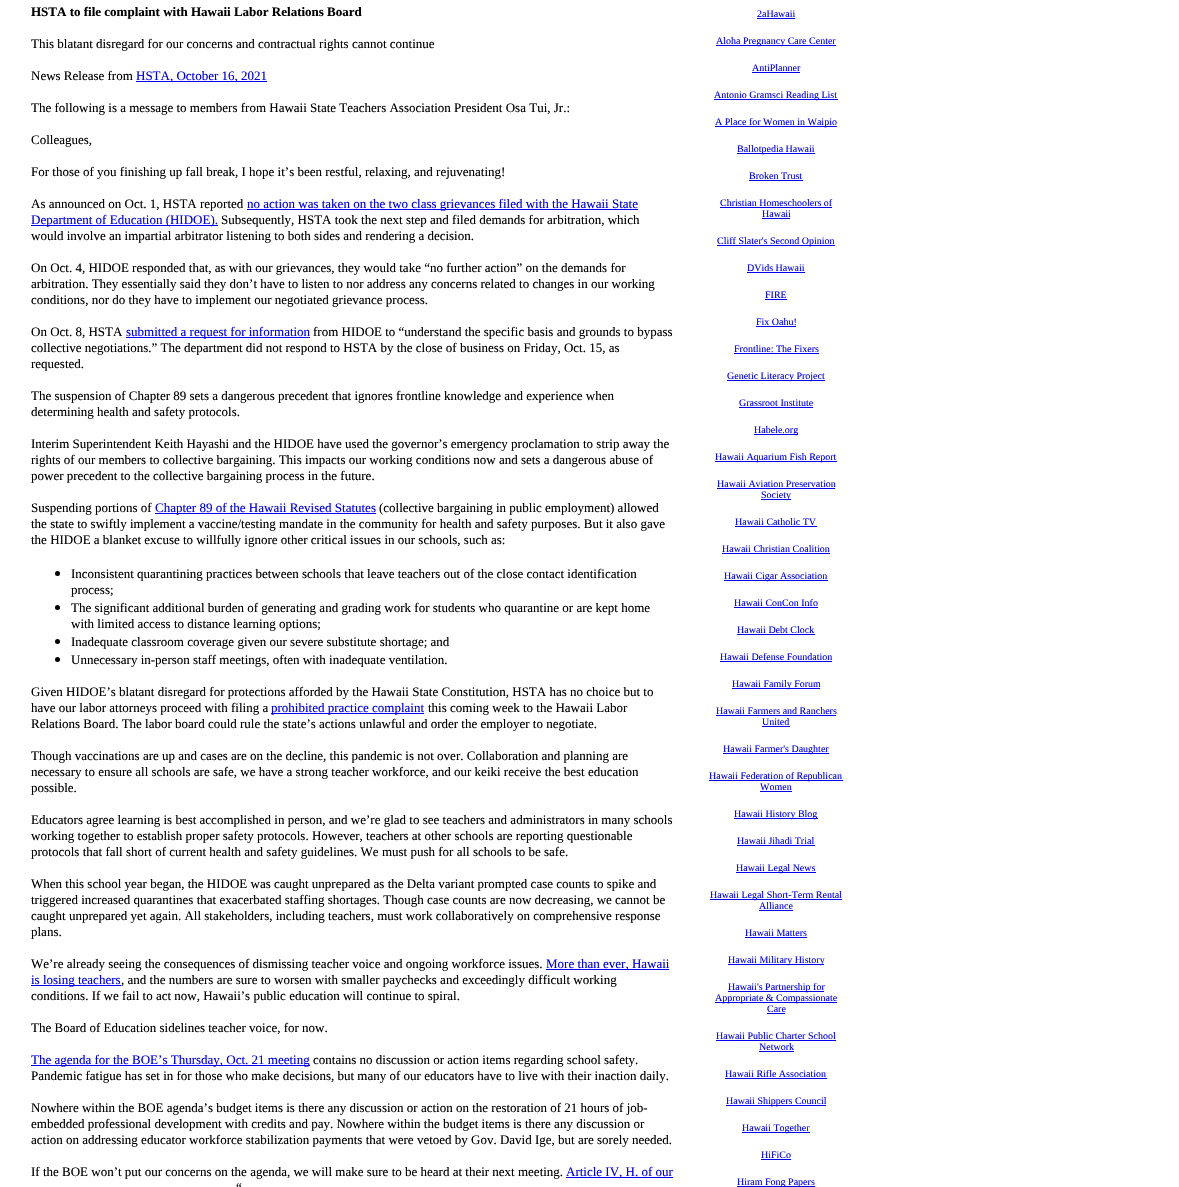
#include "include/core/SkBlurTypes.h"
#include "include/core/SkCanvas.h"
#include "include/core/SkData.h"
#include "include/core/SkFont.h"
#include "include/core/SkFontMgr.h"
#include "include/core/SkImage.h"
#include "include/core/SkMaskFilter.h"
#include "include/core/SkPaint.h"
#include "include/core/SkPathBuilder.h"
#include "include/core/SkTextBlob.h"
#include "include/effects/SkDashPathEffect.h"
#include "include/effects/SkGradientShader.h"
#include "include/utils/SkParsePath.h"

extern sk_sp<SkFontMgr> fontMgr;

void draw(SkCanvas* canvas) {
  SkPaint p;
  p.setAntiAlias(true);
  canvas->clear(SK_ColorWHITE);
  p.setColor(SkColorSetRGB(0, 0, 238));
  canvas->drawRect(SkRect::MakeLTRB(136, 81, 267, 82), p);
  canvas->drawRect(SkRect::MakeLTRB(247, 209, 638, 210), p);
  canvas->drawRect(SkRect::MakeLTRB(31, 225, 218, 226), p);
  canvas->drawRect(SkRect::MakeLTRB(126, 337, 310, 338), p);
  canvas->drawRect(SkRect::MakeLTRB(155, 513, 376, 514), p);
  p.setColor(SK_ColorBLACK);
  canvas->drawCircle(57.5f, 573.5f, 2.5f, p);
  canvas->drawCircle(57.5f, 607.5f, 2.5f, p);
  canvas->drawCircle(57.5f, 641.5f, 2.5f, p);
  canvas->drawCircle(57.5f, 659.5f, 2.5f, p);
  p.setColor(SkColorSetRGB(0, 0, 238));
  canvas->drawRect(SkRect::MakeLTRB(271, 713, 424, 714), p);
  canvas->drawRect(SkRect::MakeLTRB(546, 969, 669, 970), p);
  canvas->drawRect(SkRect::MakeLTRB(31, 985, 121, 986), p);
  canvas->drawRect(SkRect::MakeLTRB(31, 1065, 310, 1066), p);
  canvas->drawRect(SkRect::MakeLTRB(566, 1177, 673, 1178), p);
  canvas->drawRect(SkRect::MakeLTRB(757, 18, 795, 19), p);
  canvas->drawRect(SkRect::MakeLTRB(716, 45, 836, 46), p);
  canvas->drawRect(SkRect::MakeLTRB(752, 72, 800, 73), p);
  canvas->drawRect(SkRect::MakeLTRB(714, 99, 838, 100), p);
  canvas->drawRect(SkRect::MakeLTRB(715, 126, 837, 127), p);
  canvas->drawRect(SkRect::MakeLTRB(737, 153, 815, 154), p);
  canvas->drawRect(SkRect::MakeLTRB(749, 180, 803, 181), p);
  canvas->drawRect(SkRect::MakeLTRB(720, 207, 832, 208), p);
  canvas->drawRect(SkRect::MakeLTRB(762, 218, 790, 219), p);
  canvas->drawRect(SkRect::MakeLTRB(717, 245, 835, 246), p);
  canvas->drawRect(SkRect::MakeLTRB(747, 272, 805, 273), p);
  canvas->drawRect(SkRect::MakeLTRB(765, 299, 787, 300), p);
  canvas->drawRect(SkRect::MakeLTRB(756, 326, 796, 327), p);
  canvas->drawRect(SkRect::MakeLTRB(734, 353, 819, 354), p);
  canvas->drawRect(SkRect::MakeLTRB(727, 380, 825, 381), p);
  canvas->drawRect(SkRect::MakeLTRB(739, 407, 813, 408), p);
  canvas->drawRect(SkRect::MakeLTRB(754, 434, 798, 435), p);
  canvas->drawRect(SkRect::MakeLTRB(715, 461, 837, 462), p);
  canvas->drawRect(SkRect::MakeLTRB(717, 488, 835, 489), p);
  canvas->drawRect(SkRect::MakeLTRB(761, 499, 791, 500), p);
  canvas->drawRect(SkRect::MakeLTRB(735, 526, 817, 527), p);
  canvas->drawRect(SkRect::MakeLTRB(722, 553, 830, 554), p);
  canvas->drawRect(SkRect::MakeLTRB(724, 580, 828, 581), p);
  canvas->drawRect(SkRect::MakeLTRB(734, 607, 818, 608), p);
  canvas->drawRect(SkRect::MakeLTRB(737, 634, 815, 635), p);
  canvas->drawRect(SkRect::MakeLTRB(720, 661, 832, 662), p);
  canvas->drawRect(SkRect::MakeLTRB(732, 688, 820, 689), p);
  canvas->drawRect(SkRect::MakeLTRB(716, 715, 836, 716), p);
  canvas->drawRect(SkRect::MakeLTRB(762, 726, 790, 727), p);
  canvas->drawRect(SkRect::MakeLTRB(723, 753, 829, 754), p);
  canvas->drawRect(SkRect::MakeLTRB(709, 780, 843, 781), p);
  canvas->drawRect(SkRect::MakeLTRB(760, 791, 792, 792), p);
  canvas->drawRect(SkRect::MakeLTRB(734, 818, 818, 819), p);
  canvas->drawRect(SkRect::MakeLTRB(737, 845, 815, 846), p);
  canvas->drawRect(SkRect::MakeLTRB(736, 872, 816, 873), p);
  canvas->drawRect(SkRect::MakeLTRB(710, 899, 842, 900), p);
  canvas->drawRect(SkRect::MakeLTRB(759, 910, 793, 911), p);
  canvas->drawRect(SkRect::MakeLTRB(745, 937, 807, 938), p);
  canvas->drawRect(SkRect::MakeLTRB(728, 964, 824, 965), p);
  canvas->drawRect(SkRect::MakeLTRB(728, 991, 824, 992), p);
  canvas->drawRect(SkRect::MakeLTRB(715, 1002, 837, 1003), p);
  canvas->drawRect(SkRect::MakeLTRB(767, 1013, 785, 1014), p);
  canvas->drawRect(SkRect::MakeLTRB(716, 1040, 836, 1041), p);
  canvas->drawRect(SkRect::MakeLTRB(759, 1051, 794, 1052), p);
  canvas->drawRect(SkRect::MakeLTRB(725, 1078, 827, 1079), p);
  canvas->drawRect(SkRect::MakeLTRB(726, 1105, 826, 1106), p);
  canvas->drawRect(SkRect::MakeLTRB(742, 1132, 810, 1133), p);
  canvas->drawRect(SkRect::MakeLTRB(761, 1159, 791, 1160), p);
  canvas->drawRect(SkRect::MakeLTRB(737, 1186, 815, 1187), p);
  SkFont font1(fontMgr->matchFamilyStyle("Liberation Serif", SkFontStyle::Bold()), 13);
  font1.setSubpixel(true);
  p.setColor(SK_ColorBLACK);
  canvas->drawString("HSTA to file complaint with Hawaii Labor Relations Board", 31, 16, font1, p);
  SkFont font2(fontMgr->matchFamilyStyle("Liberation Serif", SkFontStyle::Normal()), 13);
  font2.setSubpixel(true);
  canvas->drawString("This blatant disregard for our concerns and contractual rights cannot continue", 31, 48, font2, p);
  canvas->drawString("News Release from", 31, 80, font2, p);
  p.setColor(SkColorSetRGB(0, 0, 238));
  canvas->drawString("HSTA, October 16, 2021", 136, 80, font2, p);
  p.setColor(SK_ColorBLACK);
  canvas->drawString("The following is a message to members from Hawaii State Teachers Association President Osa Tui, Jr.:", 31, 112, font2, p);
  canvas->drawString("Colleagues,", 31, 144, font2, p);
  canvas->drawString("For those of you finishing up fall break, I hope it’s been restful, relaxing, and rejuvenating!", 31, 176, font2, p);
  canvas->drawString("As announced on Oct. 1, HSTA reported", 31, 208, font2, p);
  p.setColor(SkColorSetRGB(0, 0, 238));
  canvas->drawString("no action was taken on the two class grievances filed with the Hawaii State", 247, 208, font2, p);
  canvas->drawString("Department of Education (HIDOE).", 31, 224, font2, p);
  p.setColor(SK_ColorBLACK);
  canvas->drawString("Subsequently, HSTA took the next step and filed demands for arbitration, which", 221, 224, font2, p);
  canvas->drawString("would involve an impartial arbitrator listening to both sides and rendering a decision.", 31, 240, font2, p);
  canvas->drawString("On Oct. 4, HIDOE responded that, as with our grievances, they would take “no further action” on the demands for", 31, 272, font2, p);
  canvas->drawString("arbitration. They essentially said they don’t have to listen to nor address any concerns related to changes in our working", 31, 288, font2, p);
  canvas->drawString("conditions, nor do they have to implement our negotiated grievance process.", 31, 304, font2, p);
  canvas->drawString("On Oct. 8, HSTA", 31, 336, font2, p);
  p.setColor(SkColorSetRGB(0, 0, 238));
  canvas->drawString("submitted a request for information", 126, 336, font2, p);
  p.setColor(SK_ColorBLACK);
  canvas->drawString("from HIDOE to “understand the specific basis and grounds to bypass", 313, 336, font2, p);
  canvas->drawString("collective negotiations.” The department did not respond to HSTA by the close of business on Friday, Oct. 15, as", 31, 352, font2, p);
  canvas->drawString("requested.", 31, 368, font2, p);
  canvas->drawString("The suspension of Chapter 89 sets a dangerous precedent that ignores frontline knowledge and experience when", 31, 400, font2, p);
  canvas->drawString("determining health and safety protocols.", 31, 416, font2, p);
  canvas->drawString("Interim Superintendent Keith Hayashi and the HIDOE have used the governor’s emergency proclamation to strip away the", 31, 448, font2, p);
  canvas->drawString("rights of our members to collective bargaining. This impacts our working conditions now and sets a dangerous abuse of", 31, 464, font2, p);
  canvas->drawString("power precedent to the collective bargaining process in the future.", 31, 480, font2, p);
  canvas->drawString("Suspending portions of", 31, 512, font2, p);
  p.setColor(SkColorSetRGB(0, 0, 238));
  canvas->drawString("Chapter 89 of the Hawaii Revised Statutes", 155, 512, font2, p);
  p.setColor(SK_ColorBLACK);
  canvas->drawString("(collective bargaining in public employment) allowed", 379, 512, font2, p);
  canvas->drawString("the state to swiftly implement a vaccine/testing mandate in the community for health and safety purposes. But it also gave", 31, 528, font2, p);
  canvas->drawString("the HIDOE a blanket excuse to willfully ignore other critical issues in our schools, such as:", 31, 544, font2, p);
  canvas->drawString("Inconsistent quarantining practices between schools that leave teachers out of the close contact identification", 71, 578, font2, p);
  canvas->drawString("process;", 71, 594, font2, p);
  canvas->drawString("The significant additional burden of generating and grading work for students who quarantine or are kept home", 71, 612, font2, p);
  canvas->drawString("with limited access to distance learning options;", 71, 628, font2, p);
  canvas->drawString("Inadequate classroom coverage given our severe substitute shortage; and", 71, 646, font2, p);
  canvas->drawString("Unnecessary in-person staff meetings, often with inadequate ventilation.", 71, 664, font2, p);
  canvas->drawString("Given HIDOE’s blatant disregard for protections afforded by the Hawaii State Constitution, HSTA has no choice but to", 31, 696, font2, p);
  canvas->drawString("have our labor attorneys proceed with filing a", 31, 712, font2, p);
  p.setColor(SkColorSetRGB(0, 0, 238));
  canvas->drawString("prohibited practice complaint", 271, 712, font2, p);
  p.setColor(SK_ColorBLACK);
  canvas->drawString("this coming week to the Hawaii Labor", 428, 712, font2, p);
  canvas->drawString("Relations Board. The labor board could rule the state’s actions unlawful and order the employer to negotiate.", 31, 728, font2, p);
  canvas->drawString("Though vaccinations are up and cases are on the decline, this pandemic is not over. Collaboration and planning are", 31, 760, font2, p);
  canvas->drawString("necessary to ensure all schools are safe, we have a strong teacher workforce, and our keiki receive the best education", 31, 776, font2, p);
  canvas->drawString("possible.", 31, 792, font2, p);
  canvas->drawString("Educators agree learning is best accomplished in person, and we’re glad to see teachers and administrators in many schools", 31, 824, font2, p);
  canvas->drawString("working together to establish proper safety protocols. However, teachers at other schools are reporting questionable", 31, 840, font2, p);
  canvas->drawString("protocols that fall short of current health and safety guidelines. We must push for all schools to be safe.", 31, 856, font2, p);
  canvas->drawString("When this school year began, the HIDOE was caught unprepared as the Delta variant prompted case counts to spike and", 31, 888, font2, p);
  canvas->drawString("triggered increased quarantines that exacerbated staffing shortages. Though case counts are now decreasing, we cannot be", 31, 904, font2, p);
  canvas->drawString("caught unprepared yet again. All stakeholders, including teachers, must work collaboratively on comprehensive response", 31, 920, font2, p);
  canvas->drawString("plans.", 31, 936, font2, p);
  canvas->drawString("We’re already seeing the consequences of dismissing teacher voice and ongoing workforce issues.", 31, 968, font2, p);
  p.setColor(SkColorSetRGB(0, 0, 238));
  canvas->drawString("More than ever, Hawaii", 546, 968, font2, p);
  canvas->drawString("is losing teachers", 31, 984, font2, p);
  p.setColor(SK_ColorBLACK);
  canvas->drawString(", and the numbers are sure to worsen with smaller paychecks and exceedingly difficult working", 121, 984, font2, p);
  canvas->drawString("conditions. If we fail to act now, Hawaii’s public education will continue to spiral.", 31, 1000, font2, p);
  canvas->drawString("The Board of Education sidelines teacher voice, for now.", 31, 1032, font2, p);
  p.setColor(SkColorSetRGB(0, 0, 238));
  canvas->drawString("The agenda for the BOE’s Thursday, Oct. 21 meeting", 31, 1064, font2, p);
  p.setColor(SK_ColorBLACK);
  canvas->drawString("contains no discussion or action items regarding school safety.", 313, 1064, font2, p);
  canvas->drawString("Pandemic fatigue has set in for those who make decisions, but many of our educators have to live with their inaction daily.", 31, 1080, font2, p);
  canvas->drawString("Nowhere within the BOE agenda’s budget items is there any discussion or action on the restoration of 21 hours of job-", 31, 1112, font2, p);
  canvas->drawString("embedded professional development with credits and pay. Nowhere within the budget items is there any discussion or", 31, 1128, font2, p);
  canvas->drawString("action on addressing educator workforce stabilization payments that were vetoed by Gov. David Ige, but are sorely needed.", 31, 1144, font2, p);
  canvas->drawString("If the BOE won’t put our concerns on the agenda, we will make sure to be heard at their next meeting.", 31, 1176, font2, p);
  p.setColor(SkColorSetRGB(0, 0, 238));
  canvas->drawString("Article IV, H. of our", 566, 1176, font2, p);
  p.setColor(SK_ColorBLACK);
  canvas->drawString("“", 236, 1192, font2, p);
  SkFont font3(fontMgr->matchFamilyStyle("Liberation Serif", SkFontStyle::Normal()), 10);
  font3.setSubpixel(true);
  p.setColor(SkColorSetRGB(0, 0, 238));
  canvas->drawString("2aHawaii", 757, 17, font3, p);
  canvas->drawString("Aloha Pregnancy Care Center", 716, 44, font3, p);
  canvas->drawString("AntiPlanner", 752, 71, font3, p);
  canvas->drawString("Antonio Gramsci Reading List", 714, 98, font3, p);
  canvas->drawString("A Place for Women in Waipio", 715, 125, font3, p);
  canvas->drawString("Ballotpedia Hawaii", 737, 152, font3, p);
  canvas->drawString("Broken Trust", 749, 179, font3, p);
  canvas->drawString("Christian Homeschoolers of", 720, 206, font3, p);
  canvas->drawString("Hawaii", 762, 217, font3, p);
  canvas->drawString("Cliff Slater's Second Opinion", 717, 244, font3, p);
  canvas->drawString("DVids Hawaii", 747, 271, font3, p);
  canvas->drawString("FIRE", 765, 298, font3, p);
  canvas->drawString("Fix Oahu!", 756, 325, font3, p);
  canvas->drawString("Frontline: The Fixers", 734, 352, font3, p);
  canvas->drawString("Genetic Literacy Project", 727, 379, font3, p);
  canvas->drawString("Grassroot Institute", 739, 406, font3, p);
  canvas->drawString("Habele.org", 754, 433, font3, p);
  canvas->drawString("Hawaii Aquarium Fish Report", 715, 460, font3, p);
  canvas->drawString("Hawaii Aviation Preservation", 717, 487, font3, p);
  canvas->drawString("Society", 761, 498, font3, p);
  canvas->drawString("Hawaii Catholic TV", 735, 525, font3, p);
  canvas->drawString("Hawaii Christian Coalition", 722, 552, font3, p);
  canvas->drawString("Hawaii Cigar Association", 724, 579, font3, p);
  canvas->drawString("Hawaii ConCon Info", 734, 606, font3, p);
  canvas->drawString("Hawaii Debt Clock", 737, 633, font3, p);
  canvas->drawString("Hawaii Defense Foundation", 720, 660, font3, p);
  canvas->drawString("Hawaii Family Forum", 732, 687, font3, p);
  canvas->drawString("Hawaii Farmers and Ranchers", 716, 714, font3, p);
  canvas->drawString("United", 762, 725, font3, p);
  canvas->drawString("Hawaii Farmer's Daughter", 723, 752, font3, p);
  canvas->drawString("Hawaii Federation of Republican", 709, 779, font3, p);
  canvas->drawString("Women", 760, 790, font3, p);
  canvas->drawString("Hawaii History Blog", 734, 817, font3, p);
  canvas->drawString("Hawaii Jihadi Trial", 737, 844, font3, p);
  canvas->drawString("Hawaii Legal News", 736, 871, font3, p);
  canvas->drawString("Hawaii Legal Short-Term Rental", 710, 898, font3, p);
  canvas->drawString("Alliance", 759, 909, font3, p);
  canvas->drawString("Hawaii Matters", 745, 936, font3, p);
  canvas->drawString("Hawaii Military History", 728, 963, font3, p);
  canvas->drawString("Hawaii's Partnership for", 728, 990, font3, p);
  canvas->drawString("Appropriate & Compassionate", 715, 1001, font3, p);
  canvas->drawString("Care", 767, 1012, font3, p);
  canvas->drawString("Hawaii Public Charter School", 716, 1039, font3, p);
  canvas->drawString("Network", 759, 1050, font3, p);
  canvas->drawString("Hawaii Rifle Association", 725, 1077, font3, p);
  canvas->drawString("Hawaii Shippers Council", 726, 1104, font3, p);
  canvas->drawString("Hawaii Together", 742, 1131, font3, p);
  canvas->drawString("HiFiCo", 761, 1158, font3, p);
  canvas->drawString("Hiram Fong Papers", 737, 1185, font3, p);
}
